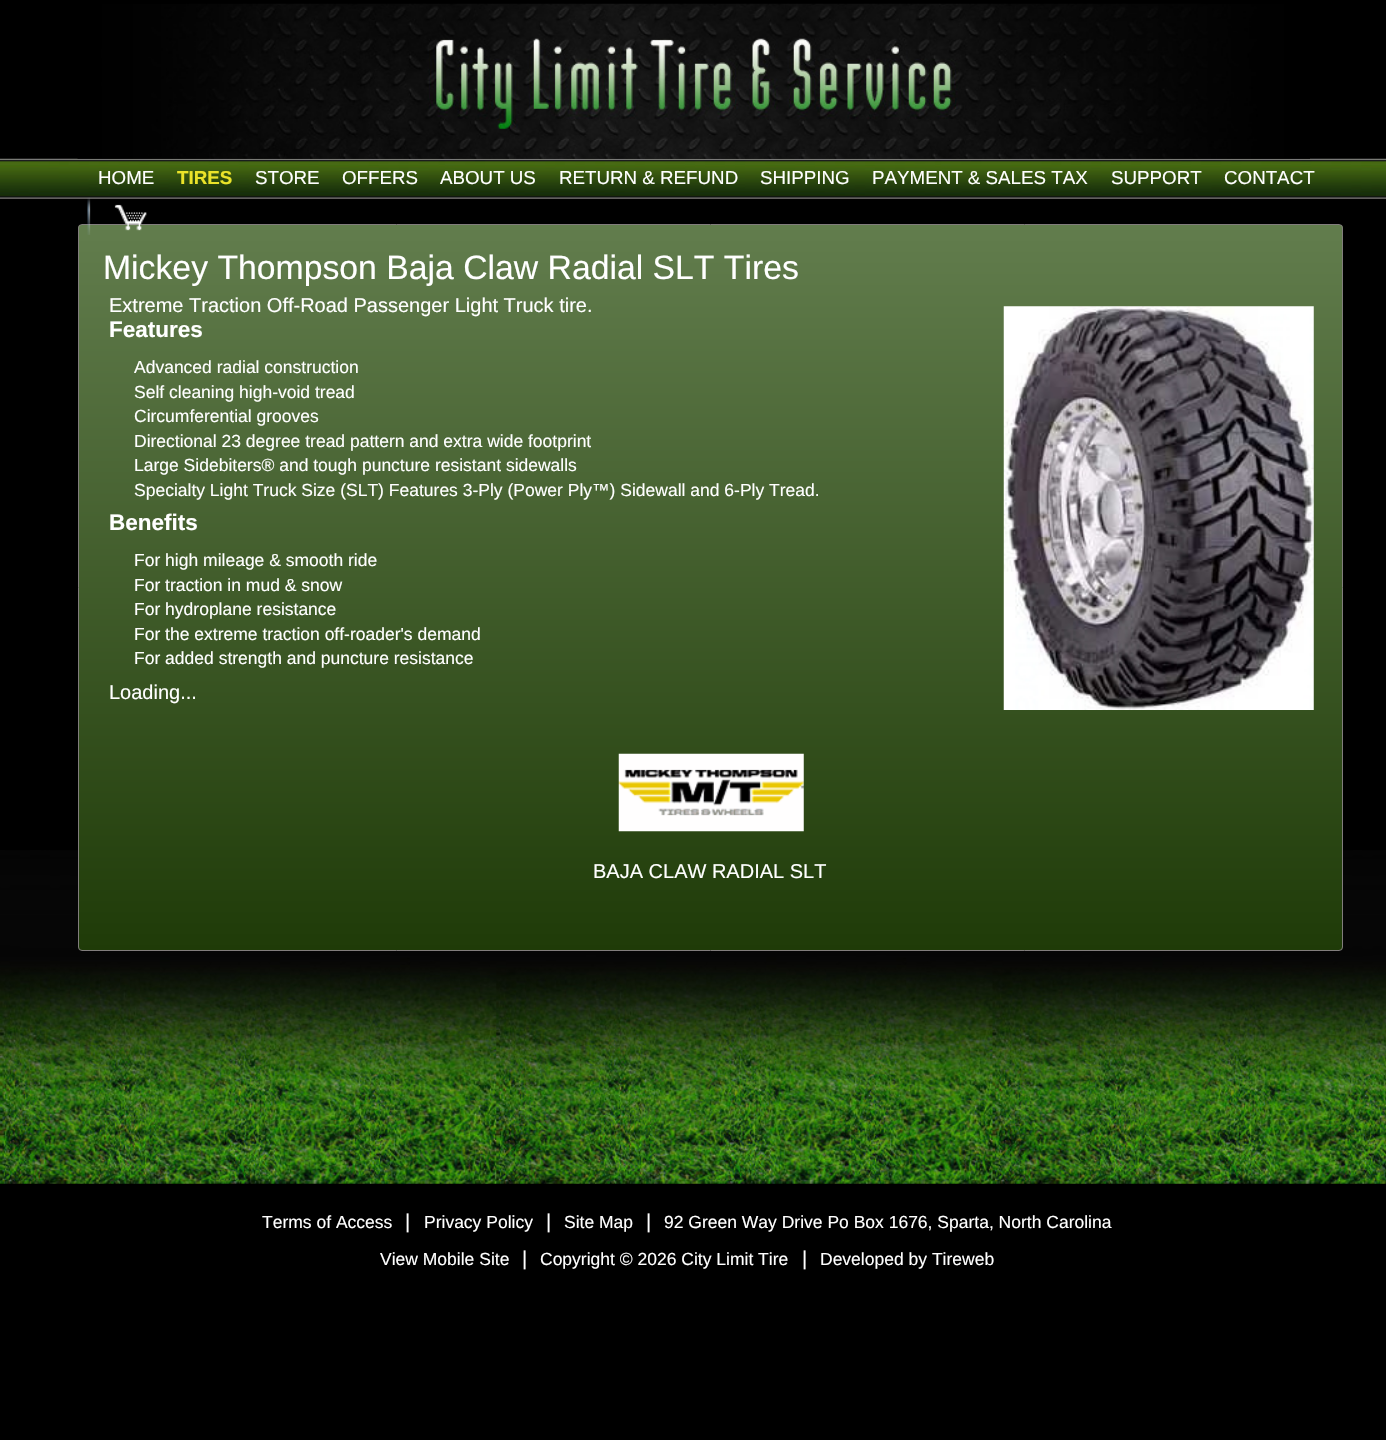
#include "include/core/SkBlurTypes.h"
#include "include/core/SkCanvas.h"
#include "include/core/SkData.h"
#include "include/core/SkFont.h"
#include "include/core/SkFontMgr.h"
#include "include/core/SkImage.h"
#include "include/core/SkMaskFilter.h"
#include "include/core/SkPaint.h"
#include "include/core/SkPathBuilder.h"
#include "include/core/SkTextBlob.h"
#include "include/effects/SkDashPathEffect.h"
#include "include/effects/SkGradientShader.h"
#include "include/utils/SkParsePath.h"

extern sk_sp<SkFontMgr> fontMgr;

void draw(SkCanvas* canvas) {
  SkPaint p;
  p.setAntiAlias(true);
  canvas->clear(SK_ColorBLACK);
  canvas->drawImageRect(SkImages::DeferredFromEncodedData(SkData::MakeFromFileName("images/1.png")), SkRect::MakeLTRB(0, 158, 1386, 199), SkSamplingOptions());
  canvas->drawImageRect(SkImages::DeferredFromEncodedData(SkData::MakeFromFileName("images/2.png")), SkRect::MakeLTRB(77, 3, 1310, 159), SkSamplingOptions());
  canvas->drawImageRect(SkImages::DeferredFromEncodedData(SkData::MakeFromFileName("images/4.png")), SkRect::MakeLTRB(0, 850, 1386, 1184), SkSamplingOptions());
  canvas->save();
  canvas->clipPath(SkPathBuilder().moveTo(82, 224).lineTo(1339, 224).cubicTo(1341, 224, 1343, 226, 1343, 228).lineTo(1343, 947).cubicTo(1343, 949, 1341, 951, 1339, 951).lineTo(82, 951).cubicTo(80, 951, 78, 949, 78, 947).lineTo(78, 228).cubicTo(78, 226, 80, 224, 82, 224).close().detach(), true);
  {
    const SkColor colors[] = {SkColorSetRGB(98, 125, 77), SkColorSetRGB(31, 59, 8)};
    const float stops[] = {0, 1};
    const SkPoint ends[] = {{710, 225}, {710, 950}};
    p.setShader(SkGradientShader::MakeLinear(ends, colors, stops, 2, SkTileMode::kClamp));
    p.setAlpha(255);
  }
  canvas->drawRect(SkRect::MakeLTRB(78, 225, 1343, 950), p);
  canvas->restore();
  p.setStyle(SkPaint::kStroke_Style);
  p.setStrokeWidth(1);
  p.setShader(nullptr);
  p.setColor(SkColorSetRGB(129, 125, 124));
  canvas->drawRoundRect(SkRect::MakeLTRB(78.5f, 224.5f, 1342.5f, 950.5f), 3.5f, 3.5f, p);
  canvas->drawImageRect(SkImages::DeferredFromEncodedData(SkData::MakeFromFileName("images/3.png")), SkRect::MakeLTRB(87, 197, 147, 235), SkSamplingOptions());
  canvas->drawImageRect(SkImages::DeferredFromEncodedData(SkData::MakeFromFileName("images/5.png")), SkRect::MakeLTRB(1003, 306, 1314, 710), SkSamplingOptions());
  canvas->drawImageRect(SkImages::DeferredFromEncodedData(SkData::MakeFromFileName("images/6.png")), SkRect::MakeLTRB(618, 753, 804, 832), SkSamplingOptions());
  SkFont font1(fontMgr->matchFamilyStyle("Liberation Sans", SkFontStyle::Normal()), 18.75f);
  font1.setSubpixel(true);
  p.setStyle(SkPaint::kFill_Style);
  p.setColor(SK_ColorWHITE);
  canvas->drawString("HOME", 98, 184, font1, p);
  SkFont font2(fontMgr->matchFamilyStyle("Liberation Sans", SkFontStyle::Bold()), 18.75f);
  font2.setSubpixel(true);
  p.setColor(SkColorSetRGB(235, 227, 41));
  canvas->drawString("TIRES", 177, 184, font2, p);
  p.setColor(SK_ColorWHITE);
  canvas->drawString("STORE", 255, 184, font1, p);
  canvas->drawString("OFFERS", 342, 184, font1, p);
  canvas->drawString("ABOUT US", 440, 184, font1, p);
  canvas->drawString("RETURN & REFUND", 559, 184, font1, p);
  canvas->drawString("SHIPPING", 760, 184, font1, p);
  canvas->drawString("PAYMENT & SALES TAX", 872, 184, font1, p);
  canvas->drawString("SUPPORT", 1111, 184, font1, p);
  canvas->drawString("CONTACT", 1224, 184, font1, p);
  SkFont font3(fontMgr->matchFamilyStyle("Liberation Sans", SkFontStyle::Normal()), 33.75f);
  font3.setSubpixel(true);
  canvas->drawString("Mickey Thompson Baja Claw Radial SLT Tires", 103, 279, font3, p);
  SkFont font4(fontMgr->matchFamilyStyle("Liberation Sans", SkFontStyle::Normal()), 20);
  font4.setSubpixel(true);
  canvas->drawString("Extreme Traction Off-Road Passenger Light Truck tire.", 109, 312, font4, p);
  SkFont font5(fontMgr->matchFamilyStyle("Liberation Sans", SkFontStyle::Bold()), 22.5f);
  font5.setSubpixel(true);
  canvas->drawString("Features", 109, 337, font5, p);
  SkFont font6(fontMgr->matchFamilyStyle("Liberation Sans", SkFontStyle::Normal()), 17.5f);
  font6.setSubpixel(true);
  canvas->drawString("Advanced radial construction", 134, 373, font6, p);
  canvas->drawString("Self cleaning high-void tread", 134, 398, font6, p);
  canvas->drawString("Circumferential grooves", 134, 422, font6, p);
  canvas->drawString("Directional 23 degree tread pattern and extra wide footprint", 134, 447, font6, p);
  canvas->drawString("Large Sidebiters® and tough puncture resistant sidewalls", 134, 471, font6, p);
  canvas->drawString("Specialty Light Truck Size (SLT) Features 3-Ply (Power Ply™) Sidewall and 6-Ply Tread.", 134, 496, font6, p);
  canvas->drawString("Benefits", 109, 530, font5, p);
  canvas->drawString("For high mileage & smooth ride", 134, 566, font6, p);
  canvas->drawString("For traction in mud & snow", 134, 591, font6, p);
  canvas->drawString("For hydroplane resistance", 134, 615, font6, p);
  canvas->drawString("For the extreme traction off-roader's demand", 134, 640, font6, p);
  canvas->drawString("For added strength and puncture resistance", 134, 664, font6, p);
  canvas->drawString("Loading...", 109, 699, font4, p);
  canvas->drawString("BAJA CLAW RADIAL SLT", 593, 878, font4, p);
  canvas->drawString("Terms of Access", 262, 1228, font6, p);
  canvas->drawString("|", 405, 1228, font4, p);
  canvas->drawString("Privacy Policy", 424, 1228, font6, p);
  canvas->drawString("|", 546, 1228, font4, p);
  canvas->drawString("Site Map", 564, 1228, font6, p);
  canvas->drawString("|", 646, 1228, font4, p);
  canvas->drawString("92 Green Way Drive Po Box 1676, Sparta, North Carolina", 664, 1228, font6, p);
  canvas->drawString("View Mobile Site", 380, 1265, font6, p);
  canvas->drawString("|", 522, 1265, font4, p);
  canvas->drawString("Copyright © 2026 City Limit Tire", 540, 1265, font6, p);
  canvas->drawString("|", 802, 1265, font4, p);
  canvas->drawString("Developed by Tireweb", 820, 1265, font6, p);
}
